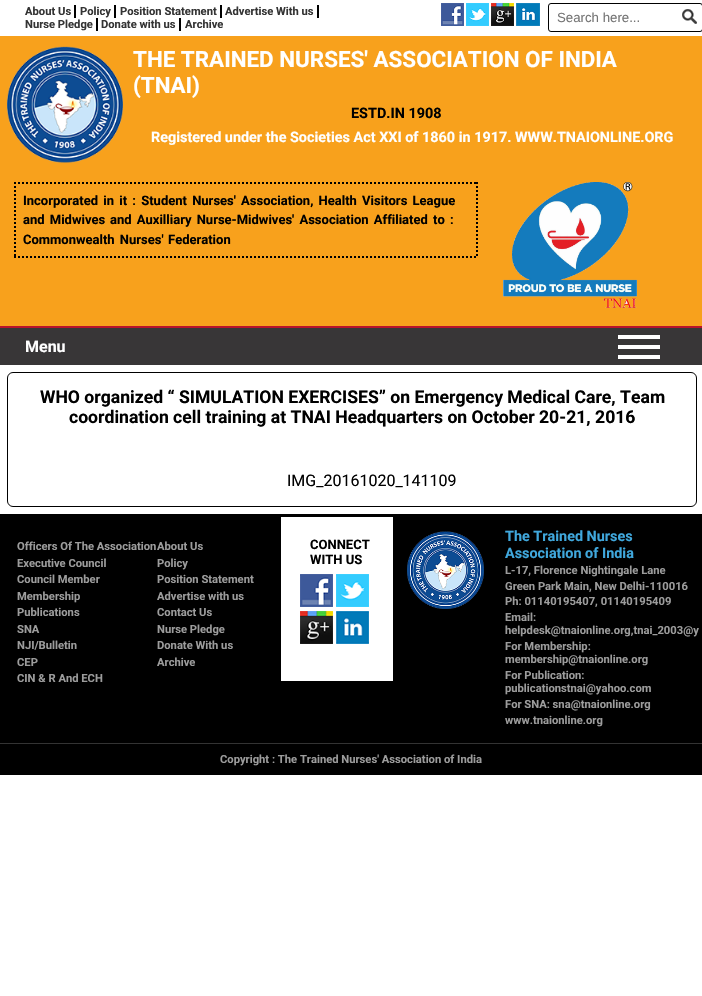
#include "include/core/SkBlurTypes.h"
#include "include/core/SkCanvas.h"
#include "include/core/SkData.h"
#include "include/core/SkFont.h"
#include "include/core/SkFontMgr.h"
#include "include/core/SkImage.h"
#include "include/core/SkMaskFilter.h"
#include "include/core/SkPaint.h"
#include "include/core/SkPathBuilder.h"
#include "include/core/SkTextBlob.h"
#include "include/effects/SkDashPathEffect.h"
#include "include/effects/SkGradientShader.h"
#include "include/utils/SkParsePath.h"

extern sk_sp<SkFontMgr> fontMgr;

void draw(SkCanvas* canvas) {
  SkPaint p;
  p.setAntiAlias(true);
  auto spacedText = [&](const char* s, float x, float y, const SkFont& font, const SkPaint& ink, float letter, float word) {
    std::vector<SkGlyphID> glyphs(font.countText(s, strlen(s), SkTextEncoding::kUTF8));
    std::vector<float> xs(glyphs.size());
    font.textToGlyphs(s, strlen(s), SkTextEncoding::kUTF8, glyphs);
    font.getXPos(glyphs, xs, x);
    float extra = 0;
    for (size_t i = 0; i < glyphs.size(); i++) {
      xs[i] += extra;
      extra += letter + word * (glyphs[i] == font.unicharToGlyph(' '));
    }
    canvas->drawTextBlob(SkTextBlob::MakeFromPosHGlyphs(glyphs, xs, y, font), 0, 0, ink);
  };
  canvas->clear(SK_ColorWHITE);
  p.setColor(SK_ColorBLACK);
  canvas->drawRect(SkRect::MakeLTRB(74, 5, 76, 18), p);
  canvas->drawRect(SkRect::MakeLTRB(114, 5, 116, 18), p);
  canvas->drawRect(SkRect::MakeLTRB(220, 5, 222, 18), p);
  canvas->drawRect(SkRect::MakeLTRB(317, 5, 319, 18), p);
  canvas->drawRect(SkRect::MakeLTRB(96, 18, 98, 31), p);
  canvas->drawRect(SkRect::MakeLTRB(179, 18, 181, 31), p);
  canvas->drawImageRect(SkImages::DeferredFromEncodedData(SkData::MakeFromFileName("images/1.png")), SkRect::MakeLTRB(441, 3, 464, 26), SkSamplingOptions());
  canvas->drawImageRect(SkImages::DeferredFromEncodedData(SkData::MakeFromFileName("images/2.png")), SkRect::MakeLTRB(466, 3, 489, 26), SkSamplingOptions());
  canvas->drawImageRect(SkImages::DeferredFromEncodedData(SkData::MakeFromFileName("images/3.png")), SkRect::MakeLTRB(491, 3, 514, 26), SkSamplingOptions());
  canvas->drawImageRect(SkImages::DeferredFromEncodedData(SkData::MakeFromFileName("images/4.png")), SkRect::MakeLTRB(516, 3, 540, 26), SkSamplingOptions());
  p.setStyle(SkPaint::kStroke_Style);
  p.setStrokeWidth(1);
  canvas->drawRoundRect(SkRect::MakeLTRB(548.5f, 3.5f, 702.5f, 31.5f), 2.5f, 2.5f, p);
  canvas->drawImageRect(SkImages::DeferredFromEncodedData(SkData::MakeFromFileName("images/5.png")), SkRect::MakeLTRB(682, 9, 697, 24), SkSamplingOptions());
  p.setStyle(SkPaint::kFill_Style);
  p.setColor(SkColorSetRGB(248, 161, 28));
  canvas->drawRect(SkRect::MakeLTRB(0, 36, 702, 326), p);
  canvas->drawImageRect(SkImages::DeferredFromEncodedData(SkData::MakeFromFileName("images/6.png")), SkRect::MakeLTRB(7, 46, 123, 163), SkSamplingOptions());
  p.setStyle(SkPaint::kStroke_Style);
  p.setStrokeWidth(2);
  p.setColor(SK_ColorBLACK);
  p.setPathEffect(SkDashPathEffect::Make({{2, 2}}, 0));
  canvas->drawPath(SkPathBuilder().moveTo(14, 183).lineTo(478, 183).detach(), p);
  p.setPathEffect(nullptr);
  p.setPathEffect(SkDashPathEffect::Make({{2, 2}}, 0));
  canvas->drawPath(SkPathBuilder().moveTo(477, 182).lineTo(477, 258).detach(), p);
  p.setPathEffect(nullptr);
  p.setPathEffect(SkDashPathEffect::Make({{2, 2}}, 0));
  canvas->drawPath(SkPathBuilder().moveTo(14, 257).lineTo(478, 257).detach(), p);
  p.setPathEffect(nullptr);
  p.setPathEffect(SkDashPathEffect::Make({{2, 2}}, 0));
  canvas->drawPath(SkPathBuilder().moveTo(15, 182).lineTo(15, 258).detach(), p);
  p.setPathEffect(nullptr);
  canvas->drawImageRect(SkImages::DeferredFromEncodedData(SkData::MakeFromFileName("images/7.png")), SkRect::MakeLTRB(503, 182, 637, 308), SkSamplingOptions());
  p.setStyle(SkPaint::kFill_Style);
  p.setColor(SkColorSetRGB(185, 19, 43));
  canvas->drawRect(SkRect::MakeLTRB(0, 326, 702, 328), p);
  p.setColor(SkColorSetRGB(56, 54, 55));
  canvas->drawRect(SkRect::MakeLTRB(0, 328, 702, 365), p);
  p.setColor(SK_ColorWHITE);
  canvas->drawRect(SkRect::MakeLTRB(618, 335, 660, 339), p);
  canvas->drawRect(SkRect::MakeLTRB(618, 345, 660, 349), p);
  canvas->drawRect(SkRect::MakeLTRB(618, 355, 660, 359), p);
  p.setStyle(SkPaint::kStroke_Style);
  p.setStrokeWidth(1);
  p.setColor(SK_ColorBLACK);
  canvas->drawRoundRect(SkRect::MakeLTRB(7.5f, 372.5f, 696.5f, 506.5f), 5.5f, 5.5f, p);
  p.setStyle(SkPaint::kFill_Style);
  canvas->drawRect(SkRect::MakeLTRB(0, 514, 702, 743), p);
  p.setColor(SkColorSetRGB(51, 51, 51));
  canvas->drawRect(SkRect::MakeLTRB(0, 743, 702, 744), p);
  p.setColor(SK_ColorWHITE);
  canvas->drawRect(SkRect::MakeLTRB(281, 517, 393, 681), p);
  canvas->drawImageRect(SkImages::DeferredFromEncodedData(SkData::MakeFromFileName("images/8.png")), SkRect::MakeLTRB(300, 574, 333, 607), SkSamplingOptions());
  canvas->drawImageRect(SkImages::DeferredFromEncodedData(SkData::MakeFromFileName("images/9.png")), SkRect::MakeLTRB(336, 574, 369, 607), SkSamplingOptions());
  canvas->drawImageRect(SkImages::DeferredFromEncodedData(SkData::MakeFromFileName("images/10.png")), SkRect::MakeLTRB(300, 611, 333, 644), SkSamplingOptions());
  canvas->drawImageRect(SkImages::DeferredFromEncodedData(SkData::MakeFromFileName("images/11.png")), SkRect::MakeLTRB(336, 611, 369, 644), SkSamplingOptions());
  canvas->drawImageRect(SkImages::DeferredFromEncodedData(SkData::MakeFromFileName("images/12.png")), SkRect::MakeLTRB(407, 531, 484, 609), SkSamplingOptions());
  p.setColor(SK_ColorBLACK);
  canvas->drawRect(SkRect::MakeLTRB(0, 744, 702, 775), p);
  SkFont font1(fontMgr->matchFamilyStyle("Roboto", SkFontStyle::Bold()), 11.2f);
  font1.setSubpixel(true);
  p.setColor(SkColorSetRGB(52, 52, 52));
  canvas->drawString("About Us", 25, 15, font1, p);
  canvas->drawString("Policy", 80, 15, font1, p);
  canvas->drawString("Position Statement", 120, 15, font1, p);
  canvas->drawString("Advertise With us", 225, 15, font1, p);
  canvas->drawString("Nurse Pledge", 25, 28, font1, p);
  canvas->drawString("Donate with us", 101, 28, font1, p);
  canvas->drawString("Archive", 185, 28, font1, p);
  SkFont font2(fontMgr->matchFamilyStyle("Liberation Sans", SkFontStyle::Normal()), 13.25f);
  font2.setSubpixel(true);
  p.setColor(SkColorSetRGB(117, 117, 117));
  canvas->drawString("Search here...", 557, 22, font2, p);
  SkFont font3(fontMgr->matchFamilyStyle("Roboto", SkFontStyle::Bold()), 22.4f);
  font3.setSubpixel(true);
  p.setColor(SK_ColorWHITE);
  canvas->drawString("THE TRAINED NURSES' ASSOCIATION OF INDIA", 133, 67, font3, p);
  canvas->drawString("(TNAI)", 133, 93, font3, p);
  SkFont font4(fontMgr->matchFamilyStyle("Roboto", SkFontStyle::Bold()), 14.4f);
  font4.setSubpixel(true);
  p.setColor(SK_ColorBLACK);
  canvas->drawString("ESTD.IN 1908", 351, 118, font4, p);
  p.setColor(SK_ColorWHITE);
  canvas->drawString("Registered under the Societies Act XXI of 1860 in 1917. WWW.TNAIONLINE.ORG", 151, 142, font4, p);
  SkFont font5(fontMgr->matchFamilyStyle("Roboto", SkFontStyle::Bold()), 13);
  font5.setSubpixel(true);
  p.setColor(SK_ColorBLACK);
  spacedText("Incorporated in it : Student Nurses' Association, Health Visitors League", 23, 205, font5, p, 0, 2);
  spacedText("and Midwives", 23, 224, font5, p, 0, 2);
  spacedText("and Auxilliary Nurse-Midwives' Association Affiliated to :", 110, 224, font5, p, 0, 2);
  spacedText("Commonwealth Nurses'", 23, 244, font5, p, 0, 2);
  canvas->drawString("Federation", 168, 244, font5, p);
  SkFont font6(fontMgr->matchFamilyStyle("Roboto", SkFontStyle::Bold()), 16);
  font6.setSubpixel(true);
  p.setColor(SK_ColorWHITE);
  canvas->drawString("Menu", 25, 352, font6, p);
  SkFont font7(fontMgr->matchFamilyStyle("Roboto", SkFontStyle::Bold()), 17.6f);
  font7.setSubpixel(true);
  p.setColor(SK_ColorBLACK);
  canvas->drawString("WHO organized “ SIMULATION EXERCISES” on Emergency Medical Care, Team", 40, 403, font7, p);
  canvas->drawString("coordination cell training at TNAI Headquarters on October 20-21, 2016", 69, 423, font7, p);
  SkFont font8(fontMgr->matchFamilyStyle("Roboto", SkFontStyle::Normal()), 16);
  font8.setSubpixel(true);
  canvas->drawString("IMG_20161020_141109", 287, 486, font8, p);
  p.setColor(SkColorSetRGB(156, 156, 156));
  canvas->drawString("Officers Of The Association", 17, 550, font1, p);
  canvas->drawString("Executive Council", 17, 567, font1, p);
  canvas->drawString("Council Member", 17, 583, font1, p);
  canvas->drawString("Membership", 17, 600, font1, p);
  canvas->drawString("Publications", 17, 616, font1, p);
  canvas->drawString("SNA", 17, 633, font1, p);
  canvas->drawString("NJI/Bulletin", 17, 649, font1, p);
  canvas->drawString("CEP", 17, 666, font1, p);
  canvas->drawString("CIN & R And ECH", 17, 682, font1, p);
  canvas->drawString("About Us", 157, 550, font1, p);
  canvas->drawString("Policy", 157, 567, font1, p);
  canvas->drawString("Position Statement", 157, 583, font1, p);
  canvas->drawString("Advertise with us", 157, 600, font1, p);
  canvas->drawString("Contact Us", 157, 616, font1, p);
  canvas->drawString("Nurse Pledge", 157, 633, font1, p);
  canvas->drawString("Donate With us", 157, 649, font1, p);
  canvas->drawString("Archive", 157, 666, font1, p);
  p.setColor(SK_ColorBLACK);
  canvas->drawString("CONNECT", 310, 549, font5, p);
  canvas->drawString("WITH US", 310, 564, font5, p);
  p.setColor(SkColorSetRGB(64, 168, 221));
  canvas->drawString("The Trained Nurses", 505, 541, font4, p);
  canvas->drawString("Association of India", 505, 558, font4, p);
  p.setColor(SkColorSetRGB(156, 156, 156));
  canvas->drawString("L-17, Florence Nightingale Lane", 505, 574, font1, p);
  canvas->drawString("Green Park Main, New Delhi-110016", 505, 590, font1, p);
  canvas->drawString("Ph: 01140195407, 01140195409", 505, 605, font1, p);
  canvas->drawString("Email:", 505, 621, font1, p);
  canvas->drawString("helpdesk@tnaionline.org,tnai_2003@y", 505, 634, font1, p);
  canvas->drawString("For Membership:", 505, 650, font1, p);
  canvas->drawString("membership@tnaionline.org", 505, 663, font1, p);
  canvas->drawString("For Publication:", 505, 679, font1, p);
  canvas->drawString("publicationstnai@yahoo.com", 505, 692, font1, p);
  canvas->drawString("For SNA: sna@tnaionline.org", 505, 708, font1, p);
  canvas->drawString("www.tnaionline.org", 505, 724, font1, p);
  canvas->drawString("Copyright : The Trained Nurses' Association of India", 220, 763, font1, p);
}
